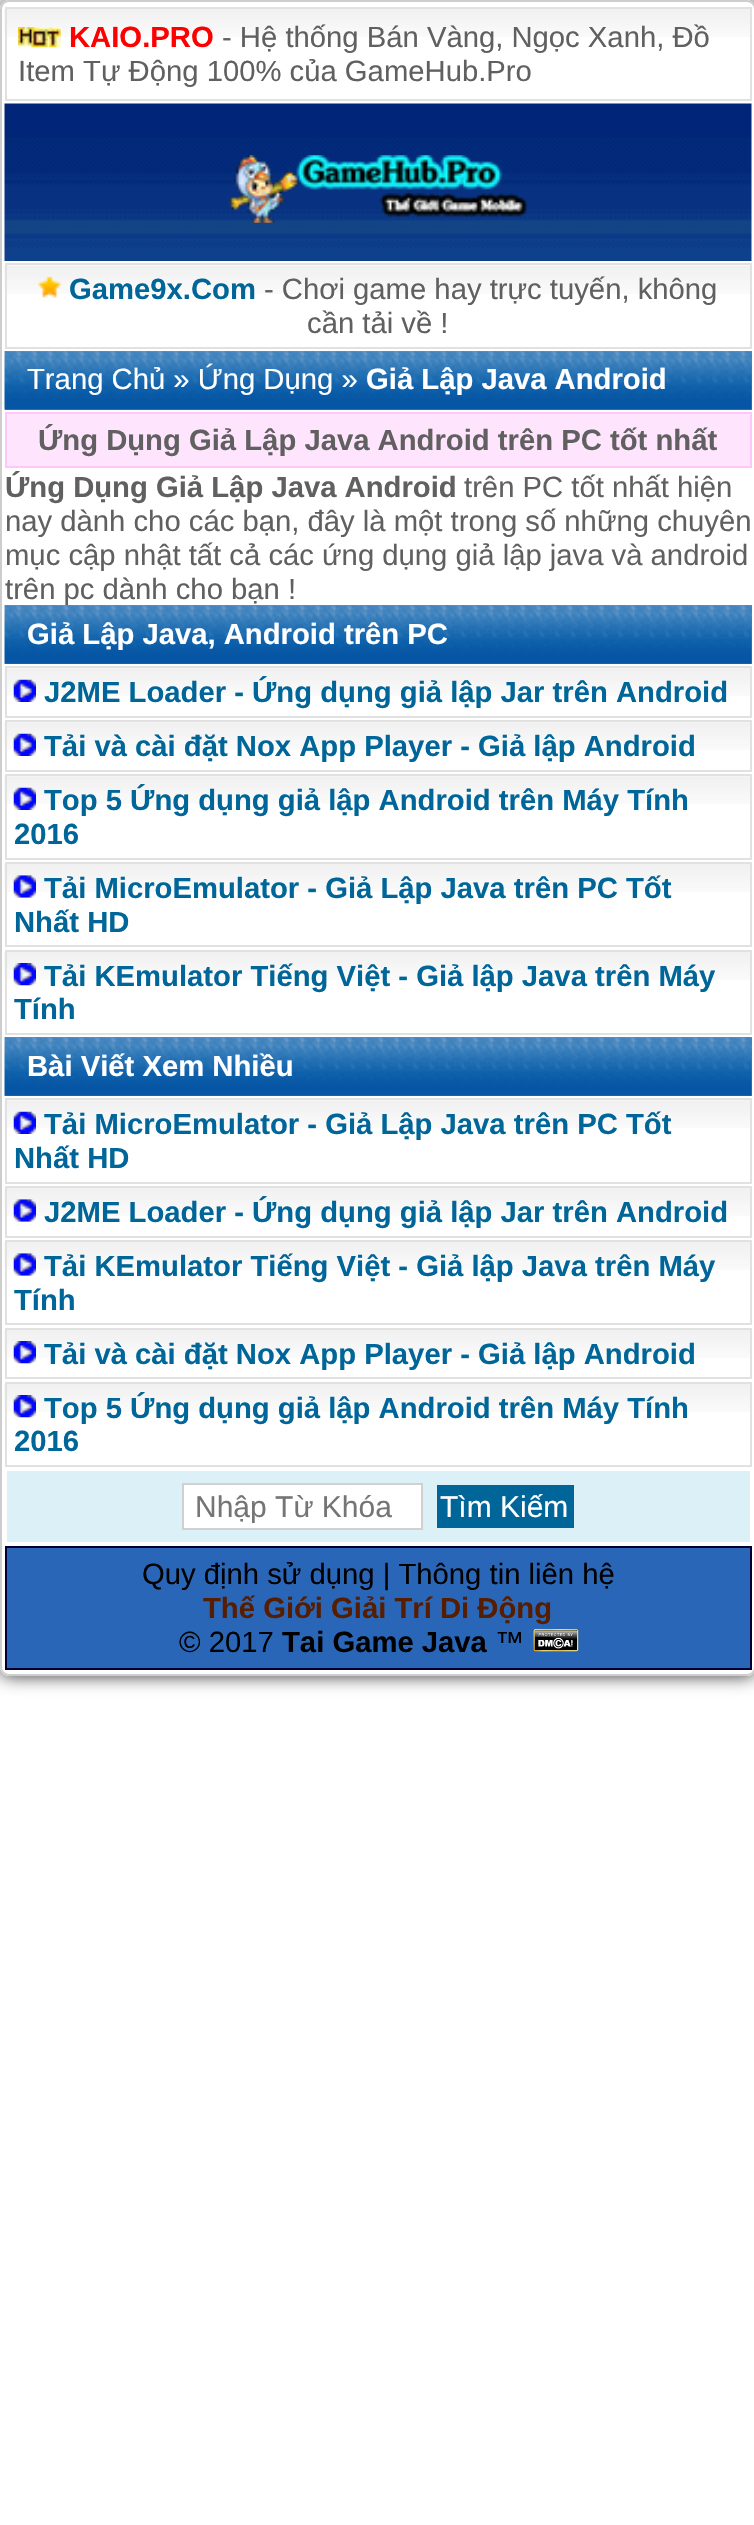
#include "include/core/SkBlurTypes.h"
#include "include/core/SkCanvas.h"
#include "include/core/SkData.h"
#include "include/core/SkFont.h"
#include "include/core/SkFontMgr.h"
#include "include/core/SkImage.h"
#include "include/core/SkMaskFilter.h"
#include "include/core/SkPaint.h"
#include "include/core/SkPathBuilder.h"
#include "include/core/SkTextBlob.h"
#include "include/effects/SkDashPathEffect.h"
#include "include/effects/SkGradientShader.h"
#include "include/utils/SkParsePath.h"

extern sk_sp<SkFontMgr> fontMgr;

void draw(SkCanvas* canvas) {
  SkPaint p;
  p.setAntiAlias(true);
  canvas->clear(SK_ColorWHITE);
  canvas->save();
  canvas->clipPath(SkPathBuilder(SkPathFillType::kEvenOdd).moveTo(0, 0).lineTo(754, 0).lineTo(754, 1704).lineTo(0, 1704).close().moveTo(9, 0).lineTo(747, 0).cubicTo(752, 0, 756, 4, 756, 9).lineTo(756, 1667).cubicTo(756, 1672, 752, 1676, 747, 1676).lineTo(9, 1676).cubicTo(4, 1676, 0, 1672, 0, 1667).lineTo(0, 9).cubicTo(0, 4, 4, 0, 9, 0).close().detach(), true);
  p.setColor(SkColorSetRGB(52, 52, 52));
  p.setMaskFilter(SkMaskFilter::MakeBlur(kNormal_SkBlurStyle, 9));
  canvas->drawRoundRect(SkRect::MakeLTRB(0, 0, 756, 1676), 9, 9, p);
  p.setMaskFilter(nullptr);
  canvas->restore();
  p.setStyle(SkPaint::kStroke_Style);
  p.setStrokeWidth(2);
  p.setColor(SkColorSetRGB(205, 205, 205));
  canvas->drawRoundRect(SkRect::MakeLTRB(1, 1, 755, 1675), 8, 8, p);
  canvas->drawImageRect(SkImages::DeferredFromEncodedData(SkData::MakeFromFileName("images/1.png")), SkRect::MakeLTRB(4, 9, 750, 37), SkSamplingOptions());
  p.setColor(SkColorSetRGB(225, 225, 225));
  canvas->drawRect(SkRect::MakeLTRB(6, 8, 751, 100), p);
  canvas->drawImageRect(SkImages::DeferredFromEncodedData(SkData::MakeFromFileName("images/2.png")), SkRect::MakeLTRB(18, 27, 61, 48), SkSamplingOptions());
  canvas->drawImageRect(SkImages::DeferredFromEncodedData(SkData::MakeFromFileName("images/3.png")), SkRect::MakeLTRB(4, 103, 752, 261), SkSamplingOptions());
  canvas->drawImageRect(SkImages::DeferredFromEncodedData(SkData::MakeFromFileName("images/4.png")), SkRect::MakeLTRB(229, 155, 528, 223), SkSamplingOptions());
  canvas->drawImageRect(SkImages::DeferredFromEncodedData(SkData::MakeFromFileName("images/5.png")), SkRect::MakeLTRB(4, 265, 750, 294), SkSamplingOptions());
  canvas->drawRect(SkRect::MakeLTRB(6, 264, 751, 348), p);
  canvas->drawImageRect(SkImages::DeferredFromEncodedData(SkData::MakeFromFileName("images/6.png")), SkRect::MakeLTRB(38, 276, 61, 298), SkSamplingOptions());
  p.setStyle(SkPaint::kFill_Style);
  p.setColor(SkColorSetRGB(64, 137, 186));
  canvas->drawRect(SkRect::MakeLTRB(5, 351, 752, 410), p);
  canvas->drawImageRect(SkImages::DeferredFromEncodedData(SkData::MakeFromFileName("images/7.png")), SkRect::MakeLTRB(4, 351, 752, 410), SkSamplingOptions());
  p.setColor(SkColorSetRGB(254, 229, 253));
  canvas->drawRect(SkRect::MakeLTRB(6, 413, 751, 467), p);
  p.setStyle(SkPaint::kStroke_Style);
  p.setColor(SkColorSetRGB(255, 198, 252));
  canvas->drawRect(SkRect::MakeLTRB(6, 413, 751, 467), p);
  canvas->drawImageRect(SkImages::DeferredFromEncodedData(SkData::MakeFromFileName("images/9.png")), SkRect::MakeLTRB(4, 668, 750, 696), SkSamplingOptions());
  p.setColor(SkColorSetRGB(225, 225, 225));
  canvas->drawRect(SkRect::MakeLTRB(6, 667, 751, 717), p);
  canvas->drawImageRect(SkImages::DeferredFromEncodedData(SkData::MakeFromFileName("images/10.png")), SkRect::MakeLTRB(13, 679, 36, 702), SkSamplingOptions());
  canvas->drawImageRect(SkImages::DeferredFromEncodedData(SkData::MakeFromFileName("images/9.png")), SkRect::MakeLTRB(4, 722, 750, 750), SkSamplingOptions());
  canvas->drawRect(SkRect::MakeLTRB(6, 721, 751, 771), p);
  canvas->drawImageRect(SkImages::DeferredFromEncodedData(SkData::MakeFromFileName("images/10.png")), SkRect::MakeLTRB(13, 733, 36, 756), SkSamplingOptions());
  canvas->drawImageRect(SkImages::DeferredFromEncodedData(SkData::MakeFromFileName("images/9.png")), SkRect::MakeLTRB(4, 776, 750, 804), SkSamplingOptions());
  canvas->drawRect(SkRect::MakeLTRB(6, 775, 751, 859), p);
  canvas->drawImageRect(SkImages::DeferredFromEncodedData(SkData::MakeFromFileName("images/10.png")), SkRect::MakeLTRB(13, 787, 36, 810), SkSamplingOptions());
  canvas->drawImageRect(SkImages::DeferredFromEncodedData(SkData::MakeFromFileName("images/1.png")), SkRect::MakeLTRB(4, 864, 750, 892), SkSamplingOptions());
  canvas->drawRect(SkRect::MakeLTRB(6, 863, 751, 946), p);
  canvas->drawImageRect(SkImages::DeferredFromEncodedData(SkData::MakeFromFileName("images/11.png")), SkRect::MakeLTRB(13, 875, 36, 898), SkSamplingOptions());
  canvas->drawImageRect(SkImages::DeferredFromEncodedData(SkData::MakeFromFileName("images/12.png")), SkRect::MakeLTRB(4, 952, 750, 980), SkSamplingOptions());
  canvas->drawRect(SkRect::MakeLTRB(6, 951, 751, 1034), p);
  canvas->drawImageRect(SkImages::DeferredFromEncodedData(SkData::MakeFromFileName("images/13.png")), SkRect::MakeLTRB(13, 963, 36, 986), SkSamplingOptions());
  p.setStyle(SkPaint::kFill_Style);
  p.setColor(SkColorSetRGB(64, 137, 186));
  canvas->drawRect(SkRect::MakeLTRB(5, 1037, 752, 1096), p);
  canvas->drawImageRect(SkImages::DeferredFromEncodedData(SkData::MakeFromFileName("images/14.png")), SkRect::MakeLTRB(4, 1037, 752, 1096), SkSamplingOptions());
  canvas->drawImageRect(SkImages::DeferredFromEncodedData(SkData::MakeFromFileName("images/9.png")), SkRect::MakeLTRB(4, 1100, 750, 1128), SkSamplingOptions());
  p.setStyle(SkPaint::kStroke_Style);
  p.setColor(SkColorSetRGB(225, 225, 225));
  canvas->drawRect(SkRect::MakeLTRB(6, 1099, 751, 1183), p);
  canvas->drawImageRect(SkImages::DeferredFromEncodedData(SkData::MakeFromFileName("images/10.png")), SkRect::MakeLTRB(13, 1111, 36, 1134), SkSamplingOptions());
  canvas->drawImageRect(SkImages::DeferredFromEncodedData(SkData::MakeFromFileName("images/1.png")), SkRect::MakeLTRB(4, 1188, 750, 1216), SkSamplingOptions());
  canvas->drawRect(SkRect::MakeLTRB(6, 1187, 751, 1237), p);
  canvas->drawImageRect(SkImages::DeferredFromEncodedData(SkData::MakeFromFileName("images/11.png")), SkRect::MakeLTRB(13, 1199, 36, 1222), SkSamplingOptions());
  canvas->drawImageRect(SkImages::DeferredFromEncodedData(SkData::MakeFromFileName("images/1.png")), SkRect::MakeLTRB(4, 1242, 750, 1270), SkSamplingOptions());
  canvas->drawRect(SkRect::MakeLTRB(6, 1241, 751, 1324), p);
  canvas->drawImageRect(SkImages::DeferredFromEncodedData(SkData::MakeFromFileName("images/11.png")), SkRect::MakeLTRB(13, 1253, 36, 1276), SkSamplingOptions());
  canvas->drawImageRect(SkImages::DeferredFromEncodedData(SkData::MakeFromFileName("images/12.png")), SkRect::MakeLTRB(4, 1330, 750, 1358), SkSamplingOptions());
  canvas->drawRect(SkRect::MakeLTRB(6, 1329, 751, 1378), p);
  canvas->drawImageRect(SkImages::DeferredFromEncodedData(SkData::MakeFromFileName("images/13.png")), SkRect::MakeLTRB(13, 1341, 36, 1364), SkSamplingOptions());
  canvas->drawImageRect(SkImages::DeferredFromEncodedData(SkData::MakeFromFileName("images/12.png")), SkRect::MakeLTRB(4, 1384, 750, 1412), SkSamplingOptions());
  canvas->drawRect(SkRect::MakeLTRB(6, 1383, 751, 1466), p);
  canvas->drawImageRect(SkImages::DeferredFromEncodedData(SkData::MakeFromFileName("images/13.png")), SkRect::MakeLTRB(13, 1395, 36, 1418), SkSamplingOptions());
  p.setStyle(SkPaint::kFill_Style);
  p.setColor(SkColorSetRGB(219, 240, 247));
  canvas->drawRect(SkRect::MakeLTRB(7, 1471, 750, 1542), p);
  p.setColor(SK_ColorWHITE);
  canvas->drawRect(SkRect::MakeLTRB(183, 1484, 422, 1529), p);
  p.setStyle(SkPaint::kStroke_Style);
  p.setColor(SkColorSetRGB(208, 208, 208));
  canvas->drawRect(SkRect::MakeLTRB(183, 1484, 422, 1529), p);
  p.setStyle(SkPaint::kFill_Style);
  p.setColor(SkColorSetRGB(0, 102, 153));
  canvas->drawRect(SkRect::MakeLTRB(437, 1485, 574, 1528), p);
  p.setColor(SkColorSetRGB(41, 102, 184));
  canvas->drawRect(SkRect::MakeLTRB(6, 1547, 751, 1669), p);
  p.setStyle(SkPaint::kStroke_Style);
  p.setColor(SkColorSetRGB(0, 0, 51));
  canvas->drawRect(SkRect::MakeLTRB(6, 1547, 751, 1669), p);
  canvas->drawImageRect(SkImages::DeferredFromEncodedData(SkData::MakeFromFileName("images/15.png")), SkRect::MakeLTRB(533, 1629, 579, 1652), SkSamplingOptions());
  SkFont font1(fontMgr->matchFamilyStyle("Liberation Sans", SkFontStyle::Bold()), 29.25f);
  font1.setSubpixel(true);
  p.setStyle(SkPaint::kFill_Style);
  p.setColor(SkColorSetRGB(255, 0, 0));
  canvas->drawString("KAIO.PRO", 69, 47, font1, p);
  SkFont font2(fontMgr->matchFamilyStyle("Liberation Sans", SkFontStyle::Normal()), 29.25f);
  font2.setSubpixel(true);
  p.setColor(SkColorSetRGB(96, 96, 96));
  canvas->drawString("- Hệ thống Bán Vàng, Ngọc Xanh, Đồ", 222, 47, font2, p);
  canvas->drawString("Item Tự Động 100% của GameHub.Pro", 18, 81, font2, p);
  p.setColor(SkColorSetRGB(0, 102, 153));
  canvas->drawString("Game9x.Com", 69, 299, font1, p);
  p.setColor(SkColorSetRGB(96, 96, 96));
  canvas->drawString("- Chơi game hay trực tuyến, không", 264, 299, font2, p);
  canvas->drawString("cần tải về !", 307, 333, font2, p);
  p.setColor(SK_ColorWHITE);
  canvas->drawString("Trang Chủ » Ứng Dụng »", 27, 389, font2, p);
  canvas->drawString("Giả Lập Java Android", 366, 389, font1, p);
  p.setColor(SkColorSetRGB(96, 96, 96));
  canvas->drawString("Ứng Dụng Giả Lập Java Android trên PC tốt nhất", 38, 450, font1, p);
  canvas->drawString("Ứng Dụng Giả Lập Java Android", 5, 497, font1, p);
  canvas->drawString("trên PC tốt nhất hiện", 464, 497, font2, p);
  canvas->drawString("nay dành cho các bạn, đây là một trong số những chuyên", 5, 531, font2, p);
  canvas->drawString("mục cập nhật tất cả các ứng dụng giả lập java và android", 5, 565, font2, p);
  canvas->drawString("trên pc dành cho bạn !", 5, 599, font2, p);
  p.setColor(SkColorSetRGB(64, 137, 186));
  canvas->drawRect(SkRect::MakeLTRB(5, 605, 752, 664), p);
  canvas->drawImageRect(SkImages::DeferredFromEncodedData(SkData::MakeFromFileName("images/8.png")), SkRect::MakeLTRB(4, 605, 752, 664), SkSamplingOptions());
  p.setColor(SK_ColorWHITE);
  canvas->drawString("Giả Lập Java, Android trên PC", 27, 644, font1, p);
  p.setColor(SkColorSetRGB(0, 102, 153));
  canvas->drawString("J2ME Loader - Ứng dụng giả lập Jar trên Android", 44, 702, font1, p);
  canvas->drawString("Tải và cài đặt Nox App Player - Giả lập Android", 44, 756, font1, p);
  canvas->drawString("Top 5 Ứng dụng giả lập Android trên Máy Tính", 44, 810, font1, p);
  canvas->drawString("2016", 14, 844, font1, p);
  canvas->drawString("Tải MicroEmulator - Giả Lập Java trên PC Tốt", 44, 898, font1, p);
  canvas->drawString("Nhất HD", 14, 932, font1, p);
  canvas->drawString("Tải KEmulator Tiếng Việt - Giả lập Java trên Máy", 44, 986, font1, p);
  canvas->drawString("Tính", 14, 1019, font1, p);
  p.setColor(SK_ColorWHITE);
  canvas->drawString("Bài Viết Xem Nhiều", 27, 1076, font1, p);
  p.setColor(SkColorSetRGB(0, 102, 153));
  canvas->drawString("Tải MicroEmulator - Giả Lập Java trên PC Tốt", 44, 1134, font1, p);
  canvas->drawString("Nhất HD", 14, 1168, font1, p);
  canvas->drawString("J2ME Loader - Ứng dụng giả lập Jar trên Android", 44, 1222, font1, p);
  canvas->drawString("Tải KEmulator Tiếng Việt - Giả lập Java trên Máy", 44, 1276, font1, p);
  canvas->drawString("Tính", 14, 1310, font1, p);
  canvas->drawString("Tải và cài đặt Nox App Player - Giả lập Android", 44, 1364, font1, p);
  canvas->drawString("Top 5 Ứng dụng giả lập Android trên Máy Tính", 44, 1418, font1, p);
  canvas->drawString("2016", 14, 1451, font1, p);
  canvas->save();
  canvas->clipRect(SkRect::MakeLTRB(194, 1490, 412, 1523));
  SkFont font3(fontMgr->matchFamilyStyle("Liberation Sans", SkFontStyle::Normal()), 30);
  font3.setSubpixel(true);
  p.setColor(SkColorSetRGB(117, 117, 117));
  canvas->drawString("Nhập Từ Khóa", 195, 1517, font3, p);
  canvas->restore();
  p.setColor(SK_ColorWHITE);
  canvas->drawString("Tìm Kiếm", 440, 1517, font3, p);
  p.setColor(SK_ColorBLACK);
  canvas->drawString("Quy định sử dụng | Thông tin liên hệ", 142, 1584, font2, p);
  p.setColor(SkColorSetRGB(86, 29, 0));
  canvas->drawString("Thế Giới Giải Trí Di Động", 203, 1618, font1, p);
  p.setColor(SK_ColorBLACK);
  canvas->drawString("© 2017", 179, 1652, font2, p);
  canvas->drawString("Tai Game Java", 282, 1652, font1, p);
  canvas->drawString("™", 495, 1652, font2, p);
}
